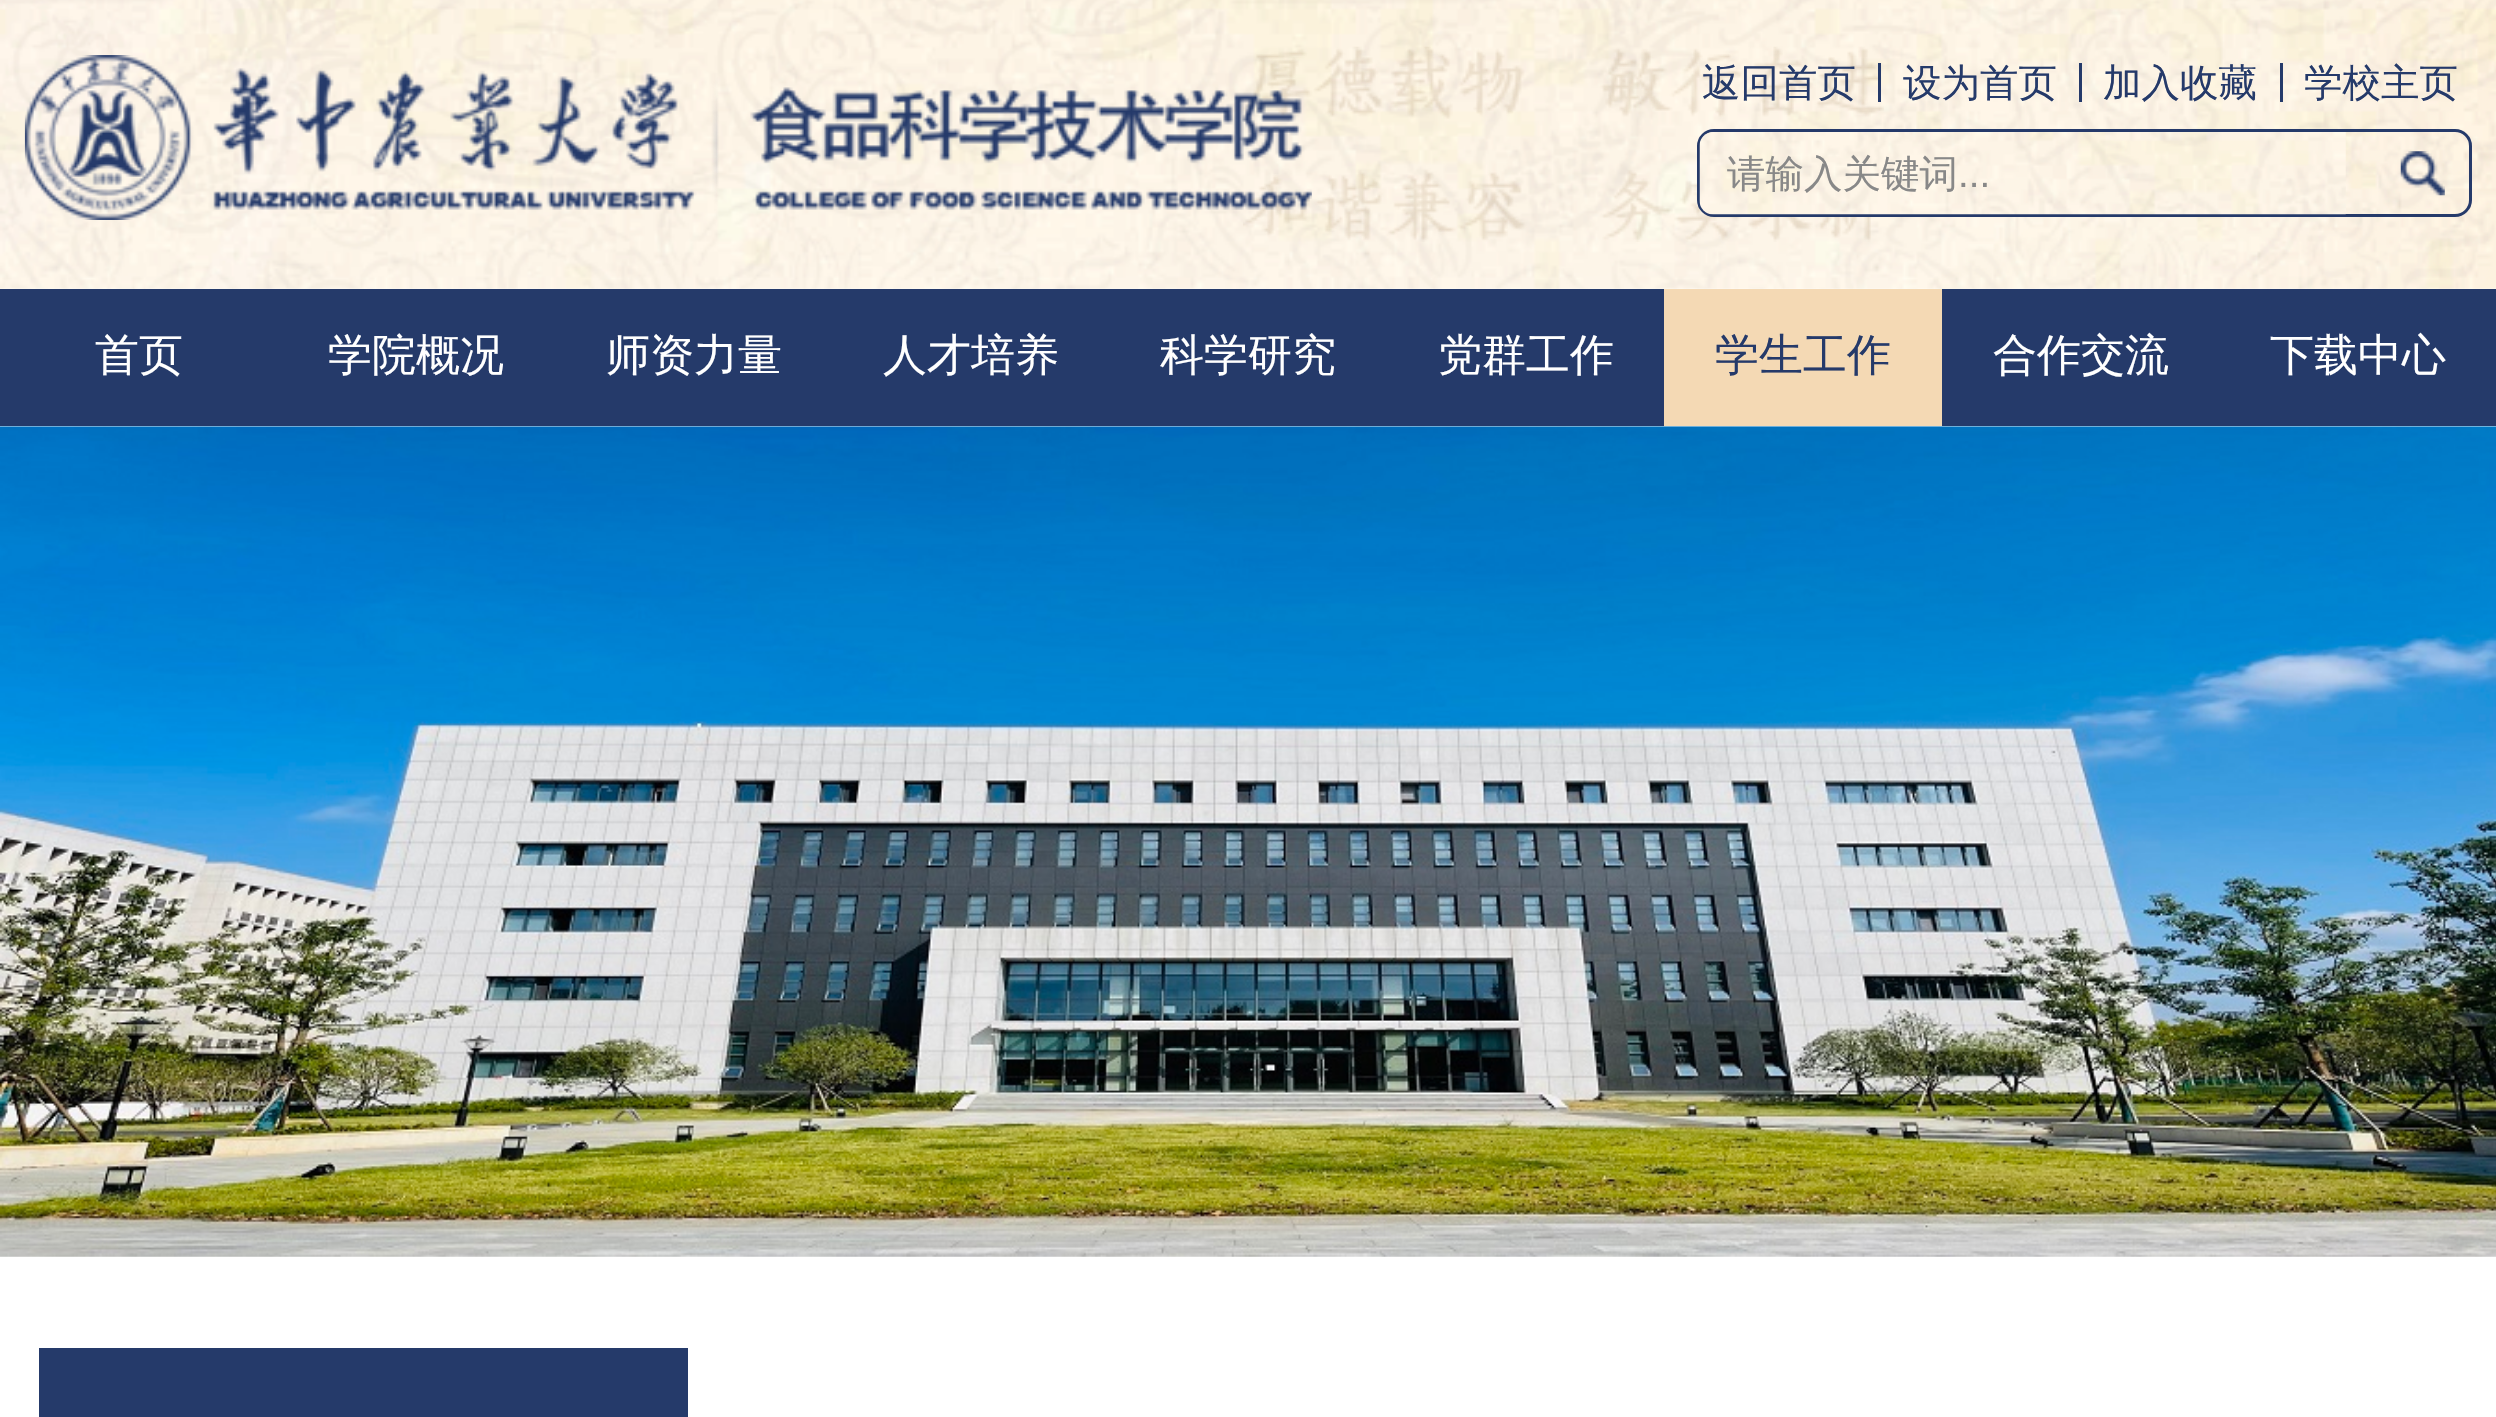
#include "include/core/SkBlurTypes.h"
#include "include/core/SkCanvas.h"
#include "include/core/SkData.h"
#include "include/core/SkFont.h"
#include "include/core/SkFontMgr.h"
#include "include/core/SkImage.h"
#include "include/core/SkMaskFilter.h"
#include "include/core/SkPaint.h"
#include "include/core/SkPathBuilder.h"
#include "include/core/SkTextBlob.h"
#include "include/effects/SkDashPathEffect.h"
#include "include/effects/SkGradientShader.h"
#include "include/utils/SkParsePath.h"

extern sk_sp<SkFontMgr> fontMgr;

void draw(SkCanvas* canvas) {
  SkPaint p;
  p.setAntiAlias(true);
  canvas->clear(SK_ColorWHITE);
  canvas->drawImageRect(SkImages::DeferredFromEncodedData(SkData::MakeFromFileName("images/1.png")), SkRect::MakeLTRB(0, 0, 2496, 289), SkSamplingOptions());
  canvas->drawImageRect(SkImages::DeferredFromEncodedData(SkData::MakeFromFileName("images/2.png")), SkRect::MakeLTRB(1243, 46, 1884, 242), SkSamplingOptions());
  canvas->drawImageRect(SkImages::DeferredFromEncodedData(SkData::MakeFromFileName("images/3.png")), SkRect::MakeLTRB(24, 55, 1312, 220), SkSamplingOptions());
  p.setColor(SkColorSetRGB(37, 58, 106));
  canvas->drawRect(SkRect::MakeLTRB(1878, 63, 1881, 102), p);
  canvas->drawRect(SkRect::MakeLTRB(2079, 63, 2082, 102), p);
  canvas->drawRect(SkRect::MakeLTRB(2280, 63, 2283, 102), p);
  p.setStyle(SkPaint::kStroke_Style);
  p.setStrokeWidth(3);
  canvas->drawRoundRect(SkRect::MakeLTRB(1698.5f, 130.5f, 2470.5f, 215.5f), 15.5f, 15.5f, p);
  canvas->drawImageRect(SkImages::DeferredFromEncodedData(SkData::MakeFromFileName("images/4.png")), SkRect::MakeLTRB(1699, 132, 2346, 215), SkSamplingOptions());
  canvas->drawImageRect(SkImages::DeferredFromEncodedData(SkData::MakeFromFileName("images/5.png")), SkRect::MakeLTRB(2400, 151, 2445, 196), SkSamplingOptions());
  p.setStyle(SkPaint::kFill_Style);
  canvas->drawRect(SkRect::MakeLTRB(0, 289, 2496, 426), p);
  p.setColor(SkColorSetRGB(244, 217, 180));
  canvas->drawRect(SkRect::MakeLTRB(1664, 289, 1942, 426), p);
  canvas->drawImageRect(SkImages::DeferredFromEncodedData(SkData::MakeFromFileName("images/6.png")), SkRect::MakeLTRB(0, 426, 2496, 1257), SkSamplingOptions());
  p.setColor(SkColorSetRGB(37, 58, 106));
  canvas->drawRect(SkRect::MakeLTRB(39, 1348, 688, 1417), p);
  SkFont font1(fontMgr->matchFamilyStyle("WenQuanYi Zen Hei", SkFontStyle(500, SkFontStyle::kNormal_Width, SkFontStyle::kUpright_Slant)), 38.5f);
  font1.setSubpixel(true);
  canvas->drawString("返回首页", 1702, 96, font1, p);
  canvas->drawString("设为首页", 1903, 96, font1, p);
  canvas->drawString("加入收藏", 2103, 96, font1, p);
  canvas->drawString("学校主页", 2304, 96, font1, p);
  p.setColor(SkColorSetRGB(136, 136, 136));
  canvas->drawString("请输入关键词", 1727, 187, font1, p);
  SkFont font2(fontMgr->matchFamilyStyle("Liberation Sans", SkFontStyle::Normal()), 38.5f);
  font2.setSubpixel(true);
  canvas->drawString("...", 1958, 187, font2, p);
  SkFont font3(fontMgr->matchFamilyStyle("WenQuanYi Zen Hei", SkFontStyle(500, SkFontStyle::kNormal_Width, SkFontStyle::kUpright_Slant)), 44);
  font3.setSubpixel(true);
  p.setColor(SK_ColorWHITE);
  canvas->drawString("首页", 95, 370, font3, p);
  canvas->drawString("学院概况", 328, 370, font3, p);
  canvas->drawString("师资力量", 606, 370, font3, p);
  canvas->drawString("人才培养", 883, 370, font3, p);
  canvas->drawString("科学研究", 1160, 370, font3, p);
  canvas->drawString("党群工作", 1438, 370, font3, p);
  p.setColor(SkColorSetRGB(37, 58, 106));
  canvas->drawString("学生工作", 1715, 370, font3, p);
  p.setColor(SK_ColorWHITE);
  canvas->drawString("合作交流", 1993, 370, font3, p);
  canvas->drawString("下载中心", 2270, 370, font3, p);
}
